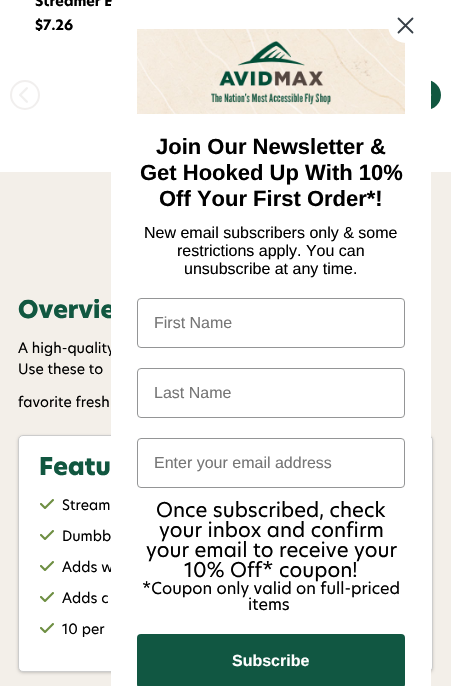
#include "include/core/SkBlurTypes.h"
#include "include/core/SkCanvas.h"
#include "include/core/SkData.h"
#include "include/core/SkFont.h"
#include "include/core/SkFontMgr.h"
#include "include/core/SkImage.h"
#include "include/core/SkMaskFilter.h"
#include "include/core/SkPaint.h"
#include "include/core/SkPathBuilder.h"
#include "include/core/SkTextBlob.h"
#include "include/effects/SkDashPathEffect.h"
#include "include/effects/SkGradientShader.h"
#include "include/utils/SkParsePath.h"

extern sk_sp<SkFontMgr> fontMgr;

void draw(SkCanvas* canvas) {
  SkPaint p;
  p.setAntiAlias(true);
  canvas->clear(SK_ColorWHITE);
  p.setStyle(SkPaint::kStroke_Style);
  p.setStrokeWidth(2);
  p.setColor(SkColorSetRGB(241, 239, 238));
  canvas->drawCircle(25, 95, 14, p);
  canvas->drawImageRect(SkImages::DeferredFromEncodedData(SkData::MakeFromFileName("images/1.png")), SkRect::MakeLTRB(19, 87, 28, 103), SkSamplingOptions());
  p.setStyle(SkPaint::kFill_Style);
  p.setColor(SkColorSetRGB(17, 87, 64));
  canvas->drawCircle(426, 95, 14, p);
  p.setStyle(SkPaint::kStroke_Style);
  canvas->drawCircle(426, 95, 14, p);
  canvas->drawImageRect(SkImages::DeferredFromEncodedData(SkData::MakeFromFileName("images/2.png")), SkRect::MakeLTRB(431, 94, 432, 96), SkSamplingOptions());
  p.setStyle(SkPaint::kFill_Style);
  p.setColor(SkColorSetRGB(243, 239, 233));
  canvas->drawRect(SkRect::MakeLTRB(0, 172, 451, 686), p);
  p.setColor(SkColorSetARGB(48, 0, 0, 0));
  p.setMaskFilter(SkMaskFilter::MakeBlur(kNormal_SkBlurStyle, 1.5f));
  canvas->drawRoundRect(SkRect::MakeLTRB(18, 436, 433, 673), 5, 5, p);
  p.setMaskFilter(nullptr);
  p.setColor(SK_ColorWHITE);
  canvas->drawRoundRect(SkRect::MakeLTRB(18.5f, 435.5f, 432.5f, 671.5f), 4.5f, 4.5f, p);
  p.setStyle(SkPaint::kStroke_Style);
  p.setStrokeWidth(1);
  p.setColor(SkColorSetRGB(204, 204, 204));
  canvas->drawRoundRect(SkRect::MakeLTRB(18.5f, 435.5f, 432.5f, 671.5f), 4.5f, 4.5f, p);
  canvas->drawImageRect(SkImages::DeferredFromEncodedData(SkData::MakeFromFileName("images/3.png")), SkRect::MakeLTRB(40, 499, 54, 509), SkSamplingOptions());
  canvas->drawImageRect(SkImages::DeferredFromEncodedData(SkData::MakeFromFileName("images/3.png")), SkRect::MakeLTRB(40, 530, 54, 540), SkSamplingOptions());
  canvas->drawImageRect(SkImages::DeferredFromEncodedData(SkData::MakeFromFileName("images/3.png")), SkRect::MakeLTRB(40, 561, 54, 571), SkSamplingOptions());
  canvas->drawImageRect(SkImages::DeferredFromEncodedData(SkData::MakeFromFileName("images/3.png")), SkRect::MakeLTRB(40, 592, 54, 602), SkSamplingOptions());
  canvas->drawImageRect(SkImages::DeferredFromEncodedData(SkData::MakeFromFileName("images/3.png")), SkRect::MakeLTRB(40, 623, 54, 633), SkSamplingOptions());
  SkFont font1(fontMgr->matchFamilyStyle("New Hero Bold", SkFontStyle::Bold()), 14);
  font1.setSubpixel(true);
  p.setStyle(SkPaint::kFill_Style);
  p.setColor(SK_ColorBLACK);
  canvas->drawString("Streamer E", 35, 6, font1, p);
  canvas->drawString("$7.26", 35, 30, font1, p);
  canvas->save();
  canvas->clipRect(SkRect::MakeLTRB(18, 299, 433, 415));
  SkFont font2(fontMgr->matchFamilyStyle("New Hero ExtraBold", SkFontStyle(800, SkFontStyle::kNormal_Width, SkFontStyle::kUpright_Slant)), 24);
  font2.setSubpixel(true);
  p.setColor(SkColorSetRGB(17, 87, 64));
  canvas->drawString("Overvie", 18, 318, font2, p);
  canvas->restore();
  SkFont font3(fontMgr->matchFamilyStyle("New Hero", SkFontStyle::Normal()), 14);
  font3.setSubpixel(true);
  p.setColor(SK_ColorBLACK);
  canvas->drawString("A high-quality", 18, 353, font3, p);
  canvas->drawString("Use these to", 18, 374, font3, p);
  canvas->drawString("favorite fresh", 18, 407, font3, p);
  p.setColor(SkColorSetRGB(17, 87, 64));
  canvas->drawString("Featu", 39, 475, font2, p);
  p.setColor(SK_ColorBLACK);
  canvas->drawString("Stream", 62, 510, font3, p);
  canvas->drawString("Dumbb", 62, 541, font3, p);
  canvas->drawString("Adds w", 62, 572, font3, p);
  canvas->drawString("Adds c", 62, 603, font3, p);
  canvas->drawString("10 per", 62, 634, font3, p);
  p.setColor(SK_ColorWHITE);
  canvas->drawRoundRect(SkRect::MakeLTRB(111, 0, 431, 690), 4, 4, p);
  canvas->drawImageRect(SkImages::DeferredFromEncodedData(SkData::MakeFromFileName("images/4.png")), SkRect::MakeLTRB(137, 29, 405, 114), SkSamplingOptions());
  canvas->drawCircle(405.5f, 25.5f, 16.5f, p);
  p.setStyle(SkPaint::kStroke_Style);
  p.setStrokeWidth(1.8f);
  canvas->drawCircle(405.5f, 25.5f, 16.5f, p);
  p.setStrokeCap(SkPaint::kRound_Cap);
  p.setStrokeJoin(SkPaint::kRound_Join);
  p.setColor(SkColorSetRGB(55, 63, 71));
  canvas->drawPath(SkPathBuilder().moveTo(398.5f, 18.5f).lineTo(412.5f, 32.5f).moveTo(398.5f, 32.5f).lineTo(412.5f, 18.5f).close().detach(), p);
  SkFont font4(fontMgr->matchFamilyStyle("Liberation Sans", SkFontStyle::Bold()), 22);
  font4.setSubpixel(true);
  p.setStyle(SkPaint::kFill_Style);
  p.setColor(SK_ColorBLACK);
  canvas->drawString("Join Our Newsletter &", 156, 154, font4, p);
  canvas->drawString("Get Hooked Up With 10%", 140, 180, font4, p);
  canvas->drawString("Off Your First Order*!", 159, 206, font4, p);
  SkFont font5(fontMgr->matchFamilyStyle("Liberation Sans", SkFontStyle::Normal()), 16);
  font5.setSubpixel(true);
  canvas->drawString("New email subscribers only & some", 144, 238, font5, p);
  canvas->drawString("restrictions apply. You can", 177, 256, font5, p);
  canvas->drawString("unsubscribe at any time.", 184, 274, font5, p);
  p.setStyle(SkPaint::kStroke_Style);
  p.setStrokeWidth(1);
  p.setStrokeCap(SkPaint::kButt_Cap);
  p.setStrokeJoin(SkPaint::kMiter_Join);
  p.setColor(SkColorSetRGB(148, 149, 150));
  canvas->drawRoundRect(SkRect::MakeLTRB(137.5f, 298.5f, 404.5f, 347.5f), 3.5f, 3.5f, p);
  p.setStyle(SkPaint::kFill_Style);
  p.setColor(SkColorSetRGB(118, 118, 118));
  canvas->drawString("First Name", 154, 328, font5, p);
  p.setStyle(SkPaint::kStroke_Style);
  p.setColor(SkColorSetRGB(148, 149, 150));
  canvas->drawRoundRect(SkRect::MakeLTRB(137.5f, 368.5f, 404.5f, 417.5f), 3.5f, 3.5f, p);
  p.setStyle(SkPaint::kFill_Style);
  p.setColor(SkColorSetRGB(118, 118, 118));
  canvas->drawString("Last Name", 154, 398, font5, p);
  p.setStyle(SkPaint::kStroke_Style);
  p.setColor(SkColorSetRGB(148, 149, 150));
  canvas->drawRoundRect(SkRect::MakeLTRB(137.5f, 438.5f, 404.5f, 487.5f), 3.5f, 3.5f, p);
  p.setStyle(SkPaint::kFill_Style);
  p.setColor(SkColorSetRGB(118, 118, 118));
  canvas->drawString("Enter your email address", 154, 468, font5, p);
  SkFont font6(fontMgr->matchFamilyStyle("New Hero", SkFontStyle::Normal()), 20);
  font6.setSubpixel(true);
  p.setColor(SK_ColorBLACK);
  canvas->drawString("Once subscribed, check", 156, 517, font6, p);
  canvas->drawString("your inbox and confirm", 159, 537, font6, p);
  canvas->drawString("your email to receive your", 146, 557, font6, p);
  canvas->drawString("10% Off* coupon!", 184, 577, font6, p);
  SkFont font7(fontMgr->matchFamilyStyle("New Hero", SkFontStyle::Normal()), 16);
  font7.setSubpixel(true);
  canvas->drawString("*Coupon only valid on full-priced", 142, 594, font7, p);
  canvas->drawString("items", 248, 610, font7, p);
  p.setColor(SkColorSetRGB(17, 87, 66));
  canvas->drawRoundRect(SkRect::MakeLTRB(137, 634, 405, 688), 4, 4, p);
  SkFont font8(fontMgr->matchFamilyStyle("Liberation Sans", SkFontStyle::Bold()), 16);
  font8.setSubpixel(true);
  p.setColor(SK_ColorWHITE);
  canvas->drawString("Subscribe", 232, 666, font8, p);
}
